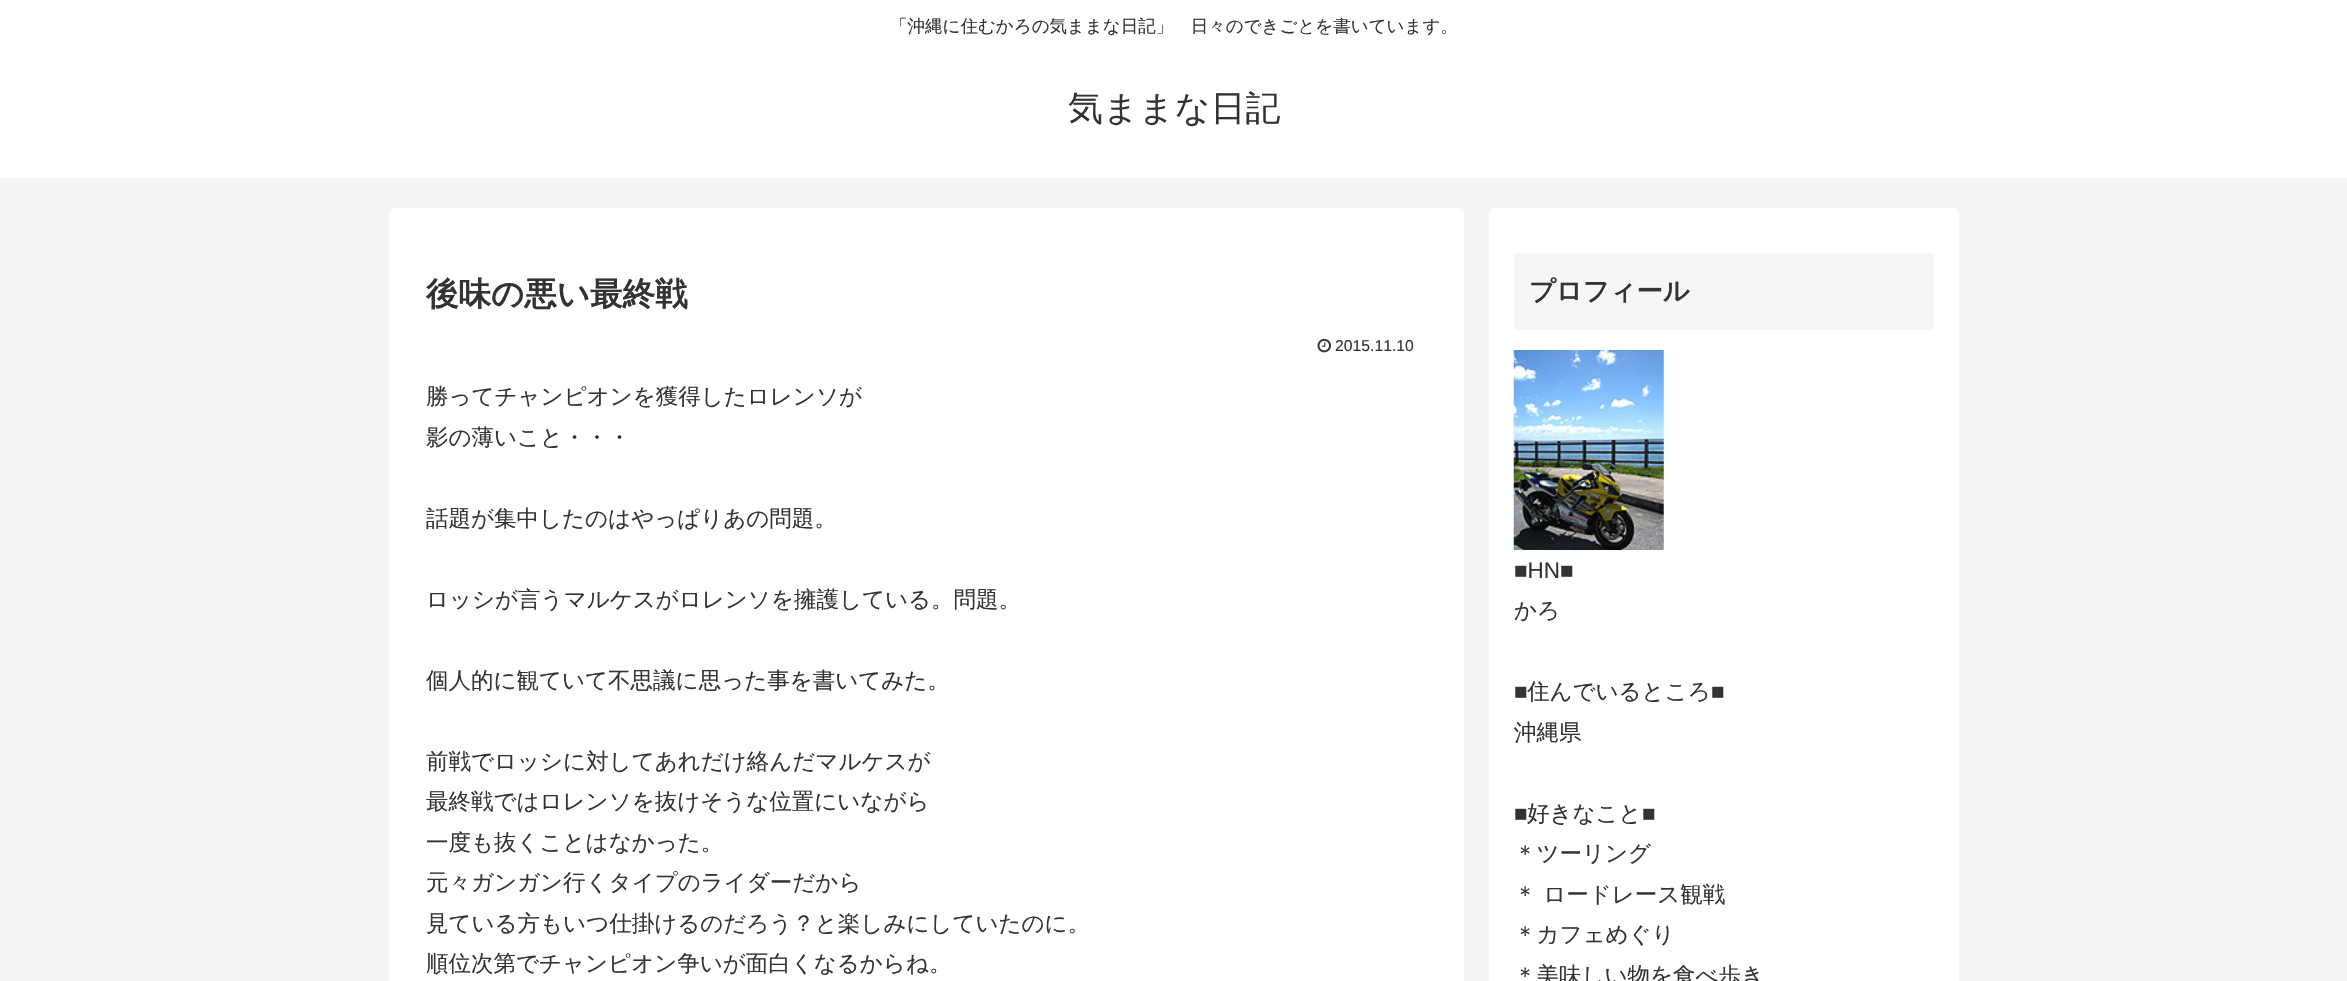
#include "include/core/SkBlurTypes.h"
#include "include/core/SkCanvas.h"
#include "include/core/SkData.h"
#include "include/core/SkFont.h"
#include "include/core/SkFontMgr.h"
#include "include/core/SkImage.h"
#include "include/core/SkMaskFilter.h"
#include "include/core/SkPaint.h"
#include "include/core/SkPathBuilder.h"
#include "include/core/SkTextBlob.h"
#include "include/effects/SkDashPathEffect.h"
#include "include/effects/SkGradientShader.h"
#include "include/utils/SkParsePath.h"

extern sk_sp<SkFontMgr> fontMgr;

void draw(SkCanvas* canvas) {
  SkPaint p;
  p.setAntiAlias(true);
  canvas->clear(SkColorSetRGB(244, 245, 247));
  p.setColor(SK_ColorWHITE);
  canvas->drawRect(SkRect::MakeLTRB(0, 0, 2347, 178), p);
  canvas->drawRoundRect(SkRect::MakeLTRB(389, 208, 1464, 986), 5, 5, p);
  canvas->drawImageRect(SkImages::DeferredFromEncodedData(SkData::MakeFromFileName("images/1.png")), SkRect::MakeLTRB(1317, 338, 1331, 353), SkSamplingOptions());
  canvas->drawRoundRect(SkRect::MakeLTRB(1489, 208, 1959, 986), 5, 5, p);
  p.setColor(SkColorSetRGB(245, 246, 247));
  canvas->drawRoundRect(SkRect::MakeLTRB(1514, 253, 1934, 330), 2.5f, 2.5f, p);
  canvas->drawImageRect(SkImages::DeferredFromEncodedData(SkData::MakeFromFileName("images/2.png")), SkRect::MakeLTRB(1513, 350, 1664, 550), SkSamplingOptions());
  SkFont font1(fontMgr->matchFamilyStyle("WenQuanYi Zen Hei", SkFontStyle(500, SkFontStyle::kNormal_Width, SkFontStyle::kUpright_Slant)), 17.5f);
  font1.setSubpixel(true);
  p.setColor(SkColorSetRGB(51, 51, 51));
  canvas->drawString("「沖縄に住むかろの気ままな日記」　日々のできごとを書いています。", 890, 32, font1, p);
  SkFont font2(fontMgr->matchFamilyStyle("WenQuanYi Zen Hei", SkFontStyle(500, SkFontStyle::kNormal_Width, SkFontStyle::kUpright_Slant)), 35);
  font2.setSubpixel(true);
  canvas->drawString("気ままな日記", 1068, 120, font2, p);
  SkFont font3(fontMgr->matchFamilyStyle("WenQuanYi Zen Hei", SkFontStyle::Bold()), 32.5f);
  font3.setSubpixel(true);
  canvas->drawString("後味の悪い最終戦", 426, 305, font3, p);
  SkFont font4(fontMgr->matchFamilyStyle("Liberation Sans", SkFontStyle::Normal()), 15.75f);
  font4.setSubpixel(true);
  canvas->drawString("2015.11.10", 1335, 351, font4, p);
  SkFont font5(fontMgr->matchFamilyStyle("WenQuanYi Zen Hei", SkFontStyle(500, SkFontStyle::kNormal_Width, SkFontStyle::kUpright_Slant)), 22.5f);
  font5.setSubpixel(true);
  canvas->drawString("勝ってチャンピオンを獲得したロレンソが", 426, 404, font5, p);
  canvas->drawString("影の薄いこと・・・", 426, 445, font5, p);
  canvas->drawString("話題が集中したのはやっぱりあの問題。", 426, 526, font5, p);
  canvas->drawString("ロッシが言うマルケスがロレンソを擁護している。問題。", 426, 607, font5, p);
  canvas->drawString("個人的に観ていて不思議に思った事を書いてみた。", 426, 688, font5, p);
  canvas->drawString("前戦でロッシに対してあれだけ絡んだマルケスが", 426, 769, font5, p);
  canvas->drawString("最終戦ではロレンソを抜けそうな位置にいながら", 426, 809, font5, p);
  canvas->drawString("一度も抜くことはなかった。", 426, 850, font5, p);
  canvas->drawString("元々ガンガン行くタイプのライダーだから", 426, 890, font5, p);
  canvas->drawString("見ている方もいつ仕掛けるのだろう？と楽しみにしていたのに。", 426, 931, font5, p);
  canvas->drawString("順位次第でチャンピオン争いが面白くなるからね。", 426, 971, font5, p);
  SkFont font6(fontMgr->matchFamilyStyle("WenQuanYi Zen Hei", SkFontStyle::Bold()), 26.25f);
  font6.setSubpixel(true);
  canvas->drawString("プロフィール", 1529, 300, font6, p);
  SkFont font7(fontMgr->matchFamilyStyle("Liberation Sans", SkFontStyle::Normal()), 22.5f);
  font7.setSubpixel(true);
  canvas->drawString("■HN■", 1514, 578, font7, p);
  canvas->drawString("かろ", 1514, 618, font5, p);
  canvas->drawString("■", 1514, 699, font7, p);
  canvas->drawString("住んでいるところ", 1527, 699, font5, p);
  canvas->drawString("■", 1711, 699, font7, p);
  canvas->drawString("沖縄県", 1514, 740, font5, p);
  canvas->drawString("■", 1514, 821, font7, p);
  canvas->drawString("好きなこと", 1527, 821, font5, p);
  canvas->drawString("■", 1642, 821, font7, p);
  canvas->drawString("＊ツーリング", 1514, 861, font5, p);
  canvas->drawString("＊ ロードレース観戦", 1514, 902, font5, p);
  canvas->drawString("＊カフェめぐり", 1514, 942, font5, p);
  canvas->drawString("＊美味しい物を食べ歩き", 1514, 983, font5, p);
}
